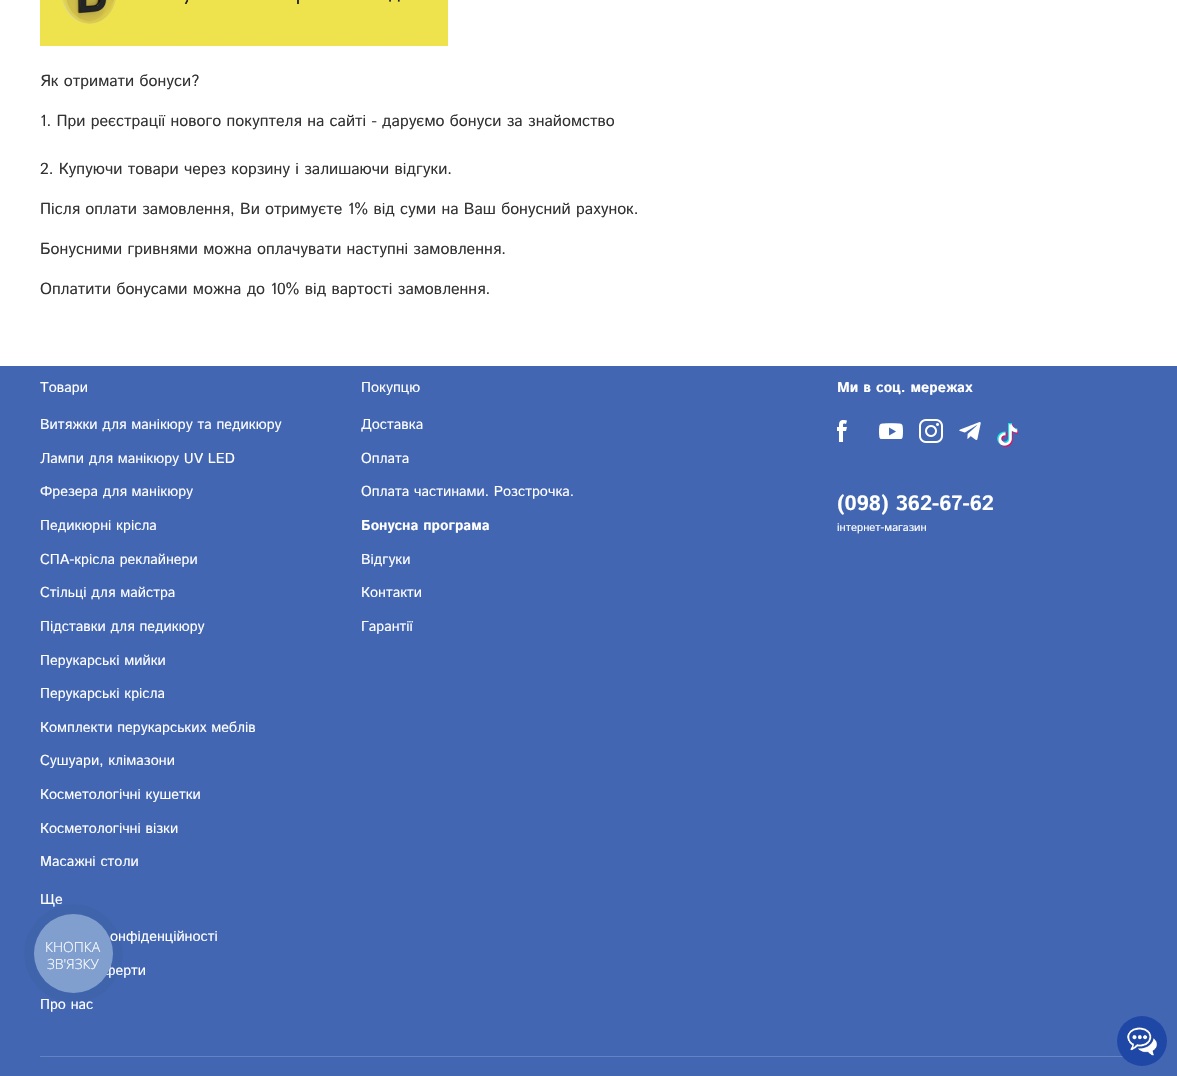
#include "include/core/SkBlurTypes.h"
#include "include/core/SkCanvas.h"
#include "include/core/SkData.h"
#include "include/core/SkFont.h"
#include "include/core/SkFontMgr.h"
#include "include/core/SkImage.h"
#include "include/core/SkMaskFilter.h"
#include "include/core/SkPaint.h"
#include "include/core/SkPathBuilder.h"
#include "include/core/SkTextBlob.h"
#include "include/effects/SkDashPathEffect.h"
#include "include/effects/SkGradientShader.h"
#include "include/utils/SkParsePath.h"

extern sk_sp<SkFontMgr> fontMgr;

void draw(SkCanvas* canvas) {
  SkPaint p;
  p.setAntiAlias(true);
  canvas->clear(SK_ColorWHITE);
  canvas->drawImageRect(SkImages::DeferredFromEncodedData(SkData::MakeFromFileName("images/1.png")), SkRect::MakeLTRB(40, 0, 448, 46), SkSamplingOptions());
  p.setColor(SkColorSetRGB(66, 102, 178));
  canvas->drawRect(SkRect::MakeLTRB(0, 366, 1177, 1076), p);
  canvas->drawImageRect(SkImages::DeferredFromEncodedData(SkData::MakeFromFileName("images/2.png")), SkRect::MakeLTRB(837, 420, 847, 442), SkSamplingOptions());
  canvas->drawImageRect(SkImages::DeferredFromEncodedData(SkData::MakeFromFileName("images/3.png")), SkRect::MakeLTRB(879, 423, 903, 439), SkSamplingOptions());
  canvas->drawImageRect(SkImages::DeferredFromEncodedData(SkData::MakeFromFileName("images/4.png")), SkRect::MakeLTRB(919, 419, 943, 443), SkSamplingOptions());
  canvas->drawImageRect(SkImages::DeferredFromEncodedData(SkData::MakeFromFileName("images/5.png")), SkRect::MakeLTRB(959, 422, 981, 440), SkSamplingOptions());
  canvas->drawImageRect(SkImages::DeferredFromEncodedData(SkData::MakeFromFileName("images/6.png")), SkRect::MakeLTRB(997, 423, 1018, 447), SkSamplingOptions());
  p.setColor(SkColorSetRGB(100, 131, 198));
  canvas->drawRect(SkRect::MakeLTRB(40, 1056, 1123, 1057), p);
  p.setColor(SkColorSetARGB(15, 42, 64, 93));
  canvas->drawCircle(73.5f, 953.5f, 49.5f, p);
  p.setColor(SkColorSetRGB(30, 71, 166));
  canvas->drawCircle(1142, 1041, 25, p);
  canvas->drawImageRect(SkImages::DeferredFromEncodedData(SkData::MakeFromFileName("images/7.png")), SkRect::MakeLTRB(1127, 1027, 1157, 1056), SkSamplingOptions());
  SkFont font1(fontMgr->matchFamilyStyle("Istok Web", SkFontStyle::Normal()), 16);
  font1.setSubpixel(true);
  p.setColor(SkColorSetRGB(51, 51, 51));
  canvas->drawString("Як отримати бонуси?", 40, 86, font1, p);
  canvas->drawString("1. При реєстрації нового покуптеля на сайті - даруємо бонуси за знайомство", 40, 126, font1, p);
  canvas->drawString("2. Купуючи товари через корзину і залишаючи відгуки.", 40, 174, font1, p);
  canvas->drawString("Після оплати замовлення, Ви отримуєте 1% від суми на Ваш бонусний рахунок.", 40, 214, font1, p);
  canvas->drawString("Бонусними гривнями можна оплачувати наступні замовлення.", 40, 254, font1, p);
  canvas->drawString("Оплатити бонусами можна до 10% від вартості замовлення.", 40, 294, font1, p);
  SkFont font2(fontMgr->matchFamilyStyle("Istok Web", SkFontStyle::Normal()), 14.4f);
  font2.setSubpixel(true);
  p.setColor(SK_ColorWHITE);
  canvas->drawString("Товари", 40, 392, font2, p);
  canvas->drawString("Витяжки для манікюру та педикюру", 40, 429, font2, p);
  canvas->drawString("Лампи для манікюру UV LED", 40, 463, font2, p);
  canvas->drawString("Фрезера для манікюру", 40, 496, font2, p);
  canvas->drawString("Педикюрні крісла", 40, 530, font2, p);
  canvas->drawString("СПА-крісла реклайнери", 40, 564, font2, p);
  canvas->drawString("Стільці для майстра", 40, 597, font2, p);
  canvas->drawString("Підставки для педикюру", 40, 631, font2, p);
  canvas->drawString("Перукарські мийки", 40, 665, font2, p);
  canvas->drawString("Перукарські крісла", 40, 698, font2, p);
  canvas->drawString("Комплекти перукарських меблів", 40, 732, font2, p);
  canvas->drawString("Сушуари, клімазони", 40, 765, font2, p);
  canvas->drawString("Косметологічні кушетки", 40, 799, font2, p);
  canvas->drawString("Косметологічні візки", 40, 833, font2, p);
  canvas->drawString("Масажні столи", 40, 866, font2, p);
  canvas->drawString("Покупцю", 361, 392, font2, p);
  canvas->drawString("Доставка", 361, 429, font2, p);
  canvas->drawString("Оплата", 361, 463, font2, p);
  canvas->drawString("Оплата частинами. Розстрочка.", 361, 496, font2, p);
  SkFont font3(fontMgr->matchFamilyStyle("Istok Web", SkFontStyle::Bold()), 14.4f);
  font3.setSubpixel(true);
  canvas->drawString("Бонусна програма", 361, 530, font3, p);
  canvas->drawString("Відгуки", 361, 564, font2, p);
  canvas->drawString("Контакти", 361, 597, font2, p);
  canvas->drawString("Гарантії", 361, 631, font2, p);
  canvas->drawString("Ще", 40, 904, font2, p);
  canvas->drawString("онфіденційності", 110, 941, font2, p);
  canvas->drawString("ферти", 104, 975, font2, p);
  canvas->drawString("Про нас", 40, 1009, font2, p);
  canvas->drawString("Ми в соц. мережах", 837, 392, font3, p);
  SkFont font4(fontMgr->matchFamilyStyle("Istok Web", SkFontStyle::Bold()), 20.75f);
  font4.setSubpixel(true);
  canvas->drawString("(098) 362-67-62", 837, 510, font4, p);
  SkFont font5(fontMgr->matchFamilyStyle("Istok Web", SkFontStyle::Normal()), 11.25f);
  font5.setSubpixel(true);
  canvas->drawString("інтернет-магазин", 837, 531, font5, p);
  p.setColor(SkColorSetRGB(128, 159, 207));
  canvas->drawCircle(73.5f, 953.5f, 39.5f, p);
  SkFont font6(fontMgr->matchFamilyStyle("Open Sans", SkFontStyle(300, SkFontStyle::kNormal_Width, SkFontStyle::kUpright_Slant)), 14);
  font6.setSubpixel(true);
  p.setColor(SK_ColorWHITE);
  canvas->drawString("КНОПКА", 45, 952, font6, p);
  canvas->drawString("ЗВ'ЯЗКУ", 47, 969, font6, p);
}
